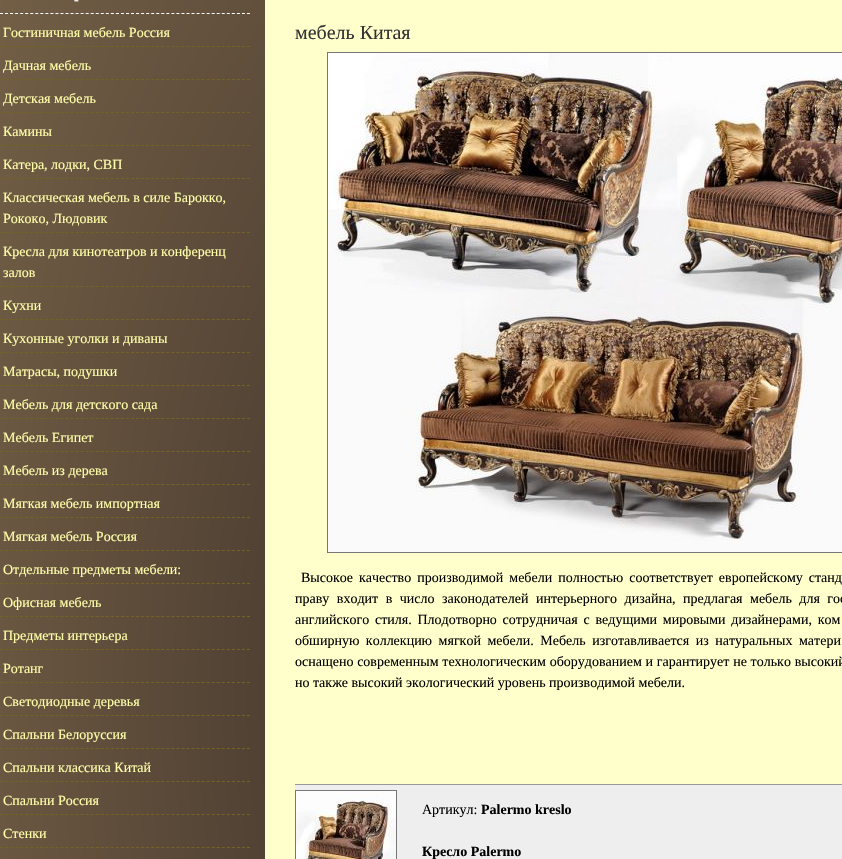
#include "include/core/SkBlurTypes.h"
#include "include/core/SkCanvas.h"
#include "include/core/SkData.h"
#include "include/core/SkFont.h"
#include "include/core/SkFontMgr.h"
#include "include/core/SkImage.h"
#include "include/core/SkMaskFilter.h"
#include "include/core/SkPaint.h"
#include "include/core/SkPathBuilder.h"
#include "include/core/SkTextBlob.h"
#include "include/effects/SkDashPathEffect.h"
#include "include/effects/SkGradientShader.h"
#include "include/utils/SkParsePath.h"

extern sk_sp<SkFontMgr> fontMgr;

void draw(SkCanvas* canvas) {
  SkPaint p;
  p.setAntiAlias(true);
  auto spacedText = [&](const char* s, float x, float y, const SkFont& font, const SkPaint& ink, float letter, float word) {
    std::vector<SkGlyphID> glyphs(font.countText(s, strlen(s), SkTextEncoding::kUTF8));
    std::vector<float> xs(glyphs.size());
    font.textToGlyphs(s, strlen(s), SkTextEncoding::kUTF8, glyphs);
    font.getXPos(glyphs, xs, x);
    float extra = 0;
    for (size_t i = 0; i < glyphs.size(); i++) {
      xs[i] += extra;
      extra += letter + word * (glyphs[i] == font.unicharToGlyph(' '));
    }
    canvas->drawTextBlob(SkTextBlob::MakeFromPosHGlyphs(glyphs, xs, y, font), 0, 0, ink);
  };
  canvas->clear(SK_ColorWHITE);
  {
    const SkColor colors[] = {SkColorSetRGB(71, 57, 46), SkColorSetRGB(122, 101, 74)};
    const float stops[] = {0.1f, 1};
    SkMatrix m = SkMatrix::Translate(421, 694).preScale(595, 1365);
    p.setShader(SkGradientShader::MakeRadial({0, 0}, 1, colors, stops, 2, SkTileMode::kClamp, 0, &m));
    p.setAlpha(255);
  }
  canvas->drawRect(SkRect::MakeLTRB(0, 0, 265, 859), p);
  p.setStyle(SkPaint::kStroke_Style);
  p.setStrokeWidth(1);
  p.setShader(nullptr);
  p.setColor(SK_ColorWHITE);
  p.setPathEffect(SkDashPathEffect::Make({{3, 2.04f}}, 0));
  canvas->drawPath(SkPathBuilder().moveTo(0, 13.5f).lineTo(250, 13.5f).detach(), p);
  p.setPathEffect(nullptr);
  p.setColor(SkColorSetRGB(116, 99, 33));
  p.setPathEffect(SkDashPathEffect::Make({{3, 2.04f}}, 0));
  canvas->drawPath(SkPathBuilder().moveTo(0, 46.5f).lineTo(250, 46.5f).detach(), p);
  p.setPathEffect(nullptr);
  p.setPathEffect(SkDashPathEffect::Make({{3, 2.04f}}, 0));
  canvas->drawPath(SkPathBuilder().moveTo(0, 79.5f).lineTo(250, 79.5f).detach(), p);
  p.setPathEffect(nullptr);
  p.setPathEffect(SkDashPathEffect::Make({{3, 2.04f}}, 0));
  canvas->drawPath(SkPathBuilder().moveTo(0, 112.5f).lineTo(250, 112.5f).detach(), p);
  p.setPathEffect(nullptr);
  p.setPathEffect(SkDashPathEffect::Make({{3, 2.04f}}, 0));
  canvas->drawPath(SkPathBuilder().moveTo(0, 145.5f).lineTo(250, 145.5f).detach(), p);
  p.setPathEffect(nullptr);
  p.setPathEffect(SkDashPathEffect::Make({{3, 2.04f}}, 0));
  canvas->drawPath(SkPathBuilder().moveTo(0, 178.5f).lineTo(250, 178.5f).detach(), p);
  p.setPathEffect(nullptr);
  p.setPathEffect(SkDashPathEffect::Make({{3, 2.04f}}, 0));
  canvas->drawPath(SkPathBuilder().moveTo(0, 232.5f).lineTo(250, 232.5f).detach(), p);
  p.setPathEffect(nullptr);
  p.setPathEffect(SkDashPathEffect::Make({{3, 2.04f}}, 0));
  canvas->drawPath(SkPathBuilder().moveTo(0, 286.5f).lineTo(250, 286.5f).detach(), p);
  p.setPathEffect(nullptr);
  p.setPathEffect(SkDashPathEffect::Make({{3, 2.04f}}, 0));
  canvas->drawPath(SkPathBuilder().moveTo(0, 319.5f).lineTo(250, 319.5f).detach(), p);
  p.setPathEffect(nullptr);
  p.setPathEffect(SkDashPathEffect::Make({{3, 2.04f}}, 0));
  canvas->drawPath(SkPathBuilder().moveTo(0, 352.5f).lineTo(250, 352.5f).detach(), p);
  p.setPathEffect(nullptr);
  p.setPathEffect(SkDashPathEffect::Make({{3, 2.04f}}, 0));
  canvas->drawPath(SkPathBuilder().moveTo(0, 385.5f).lineTo(250, 385.5f).detach(), p);
  p.setPathEffect(nullptr);
  p.setPathEffect(SkDashPathEffect::Make({{3, 2.04f}}, 0));
  canvas->drawPath(SkPathBuilder().moveTo(0, 418.5f).lineTo(250, 418.5f).detach(), p);
  p.setPathEffect(nullptr);
  p.setPathEffect(SkDashPathEffect::Make({{3, 2.04f}}, 0));
  canvas->drawPath(SkPathBuilder().moveTo(0, 451.5f).lineTo(250, 451.5f).detach(), p);
  p.setPathEffect(nullptr);
  p.setPathEffect(SkDashPathEffect::Make({{3, 2.04f}}, 0));
  canvas->drawPath(SkPathBuilder().moveTo(0, 484.5f).lineTo(250, 484.5f).detach(), p);
  p.setPathEffect(nullptr);
  p.setPathEffect(SkDashPathEffect::Make({{3, 2.04f}}, 0));
  canvas->drawPath(SkPathBuilder().moveTo(0, 517.5f).lineTo(250, 517.5f).detach(), p);
  p.setPathEffect(nullptr);
  p.setPathEffect(SkDashPathEffect::Make({{3, 2.04f}}, 0));
  canvas->drawPath(SkPathBuilder().moveTo(0, 550.5f).lineTo(250, 550.5f).detach(), p);
  p.setPathEffect(nullptr);
  p.setPathEffect(SkDashPathEffect::Make({{3, 2.04f}}, 0));
  canvas->drawPath(SkPathBuilder().moveTo(0, 583.5f).lineTo(250, 583.5f).detach(), p);
  p.setPathEffect(nullptr);
  p.setPathEffect(SkDashPathEffect::Make({{3, 2.04f}}, 0));
  canvas->drawPath(SkPathBuilder().moveTo(0, 616.5f).lineTo(250, 616.5f).detach(), p);
  p.setPathEffect(nullptr);
  p.setPathEffect(SkDashPathEffect::Make({{3, 2.04f}}, 0));
  canvas->drawPath(SkPathBuilder().moveTo(0, 649.5f).lineTo(250, 649.5f).detach(), p);
  p.setPathEffect(nullptr);
  p.setPathEffect(SkDashPathEffect::Make({{3, 2.04f}}, 0));
  canvas->drawPath(SkPathBuilder().moveTo(0, 682.5f).lineTo(250, 682.5f).detach(), p);
  p.setPathEffect(nullptr);
  p.setPathEffect(SkDashPathEffect::Make({{3, 2.04f}}, 0));
  canvas->drawPath(SkPathBuilder().moveTo(0, 715.5f).lineTo(250, 715.5f).detach(), p);
  p.setPathEffect(nullptr);
  p.setPathEffect(SkDashPathEffect::Make({{3, 2.04f}}, 0));
  canvas->drawPath(SkPathBuilder().moveTo(0, 748.5f).lineTo(250, 748.5f).detach(), p);
  p.setPathEffect(nullptr);
  p.setPathEffect(SkDashPathEffect::Make({{3, 2.04f}}, 0));
  canvas->drawPath(SkPathBuilder().moveTo(0, 781.5f).lineTo(250, 781.5f).detach(), p);
  p.setPathEffect(nullptr);
  p.setPathEffect(SkDashPathEffect::Make({{3, 2.04f}}, 0));
  canvas->drawPath(SkPathBuilder().moveTo(0, 814.5f).lineTo(250, 814.5f).detach(), p);
  p.setPathEffect(nullptr);
  p.setPathEffect(SkDashPathEffect::Make({{3, 2.04f}}, 0));
  canvas->drawPath(SkPathBuilder().moveTo(0, 847.5f).lineTo(250, 847.5f).detach(), p);
  p.setPathEffect(nullptr);
  p.setStyle(SkPaint::kFill_Style);
  p.setColor(SkColorSetRGB(255, 255, 204));
  canvas->drawRect(SkRect::MakeLTRB(265, 0, 842, 859), p);
  p.setStyle(SkPaint::kStroke_Style);
  p.setColor(SkColorSetRGB(119, 119, 119));
  canvas->drawRect(SkRect::MakeLTRB(327.5f, 52.5f, 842.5f, 552.5f), p);
  canvas->drawImageRect(SkImages::DeferredFromEncodedData(SkData::MakeFromFileName("images/1.png")), SkRect::MakeLTRB(328, 53, 842, 552), SkSamplingOptions());
  p.setStyle(SkPaint::kFill_Style);
  p.setColor(SkColorSetRGB(238, 238, 238));
  canvas->drawRect(SkRect::MakeLTRB(295, 785, 842, 859), p);
  p.setColor(SkColorSetRGB(153, 153, 153));
  canvas->drawRect(SkRect::MakeLTRB(295, 784, 842, 785), p);
  p.setStyle(SkPaint::kStroke_Style);
  p.setColor(SkColorSetRGB(119, 119, 119));
  canvas->drawRect(SkRect::MakeLTRB(295.5f, 790.5f, 396.5f, 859.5f), p);
  canvas->drawImageRect(SkImages::DeferredFromEncodedData(SkData::MakeFromFileName("images/2.png")), SkRect::MakeLTRB(296, 791, 396, 859), SkSamplingOptions());
  SkFont font1(fontMgr->matchFamilyStyle("Liberation Serif", SkFontStyle::Normal()), 14);
  font1.setSubpixel(true);
  p.setStyle(SkPaint::kFill_Style);
  p.setColor(SK_ColorWHITE);
  canvas->drawString("-", 74, 4, font1, p);
  p.setColor(SkColorSetRGB(255, 255, 170));
  canvas->drawString("Гостиничная мебель Россия", 3, 37, font1, p);
  canvas->drawString("Дачная мебель", 3, 70, font1, p);
  canvas->drawString("Детская мебель", 3, 103, font1, p);
  canvas->drawString("Камины", 3, 136, font1, p);
  canvas->drawString("Катера, лодки, СВП", 3, 169, font1, p);
  canvas->drawString("Классическая мебель в силе Барокко,", 3, 202, font1, p);
  canvas->drawString("Рококо, Людовик", 3, 223, font1, p);
  canvas->drawString("Кресла для кинотеатров и конференц", 3, 256, font1, p);
  canvas->drawString("залов", 3, 277, font1, p);
  canvas->drawString("Кухни", 3, 310, font1, p);
  canvas->drawString("Кухонные уголки и диваны", 3, 343, font1, p);
  canvas->drawString("Матрасы, подушки", 3, 376, font1, p);
  canvas->drawString("Мебель для детского сада", 3, 409, font1, p);
  canvas->drawString("Мебель Египет", 3, 442, font1, p);
  canvas->drawString("Мебель из дерева", 3, 475, font1, p);
  canvas->drawString("Мягкая мебель импортная", 3, 508, font1, p);
  canvas->drawString("Мягкая мебель Россия", 3, 541, font1, p);
  canvas->drawString("Отдельные предметы мебели:", 3, 574, font1, p);
  canvas->drawString("Офисная мебель", 3, 607, font1, p);
  canvas->drawString("Предметы интерьера", 3, 640, font1, p);
  canvas->drawString("Ротанг", 3, 673, font1, p);
  canvas->drawString("Светодиодные деревья", 3, 706, font1, p);
  canvas->drawString("Спальни Белоруссия", 3, 739, font1, p);
  canvas->drawString("Спальни классика Китай", 3, 772, font1, p);
  canvas->drawString("Спальни Россия", 3, 805, font1, p);
  canvas->drawString("Стенки", 3, 838, font1, p);
  SkFont font2(fontMgr->matchFamilyStyle("Liberation Serif", SkFontStyle::Normal()), 20);
  font2.setSubpixel(true);
  p.setColor(SkColorSetRGB(51, 51, 51));
  canvas->drawString("мебель Китая", 295, 39, font2, p);
  p.setColor(SK_ColorBLACK);
  spacedText("Высокое качество производимой мебели полностью соответствует европейскому станд", 301, 582, font1, p, 0, 2.5f);
  spacedText("праву входит в число законодателей интерьерного дизайна, предлагая мебель для гос", 295, 603, font1, p, 0, 4);
  spacedText("английского стиля. Плодотворно сотрудничая с ведущими мировыми дизайнерами, ком", 295, 624, font1, p, 0, 2.25f);
  spacedText("обширную коллекцию мягкой мебели. Мебель изготавливается из натуральных матери", 295, 645, font1, p, 0, 3);
  spacedText("оснащено современным технологическим оборудованием и гарантирует не только высокий", 295, 666, font1, p, 0, 0.25f);
  canvas->drawString("но также высокий экологический уровень производимой мебели.", 295, 687, font1, p);
  canvas->drawString("Артикул:", 422, 814, font1, p);
  SkFont font3(fontMgr->matchFamilyStyle("Liberation Serif", SkFontStyle::Bold()), 14);
  font3.setSubpixel(true);
  canvas->drawString("Palermo kreslo", 481, 814, font3, p);
  canvas->drawString("Кресло Palermo", 422, 856, font3, p);
}
